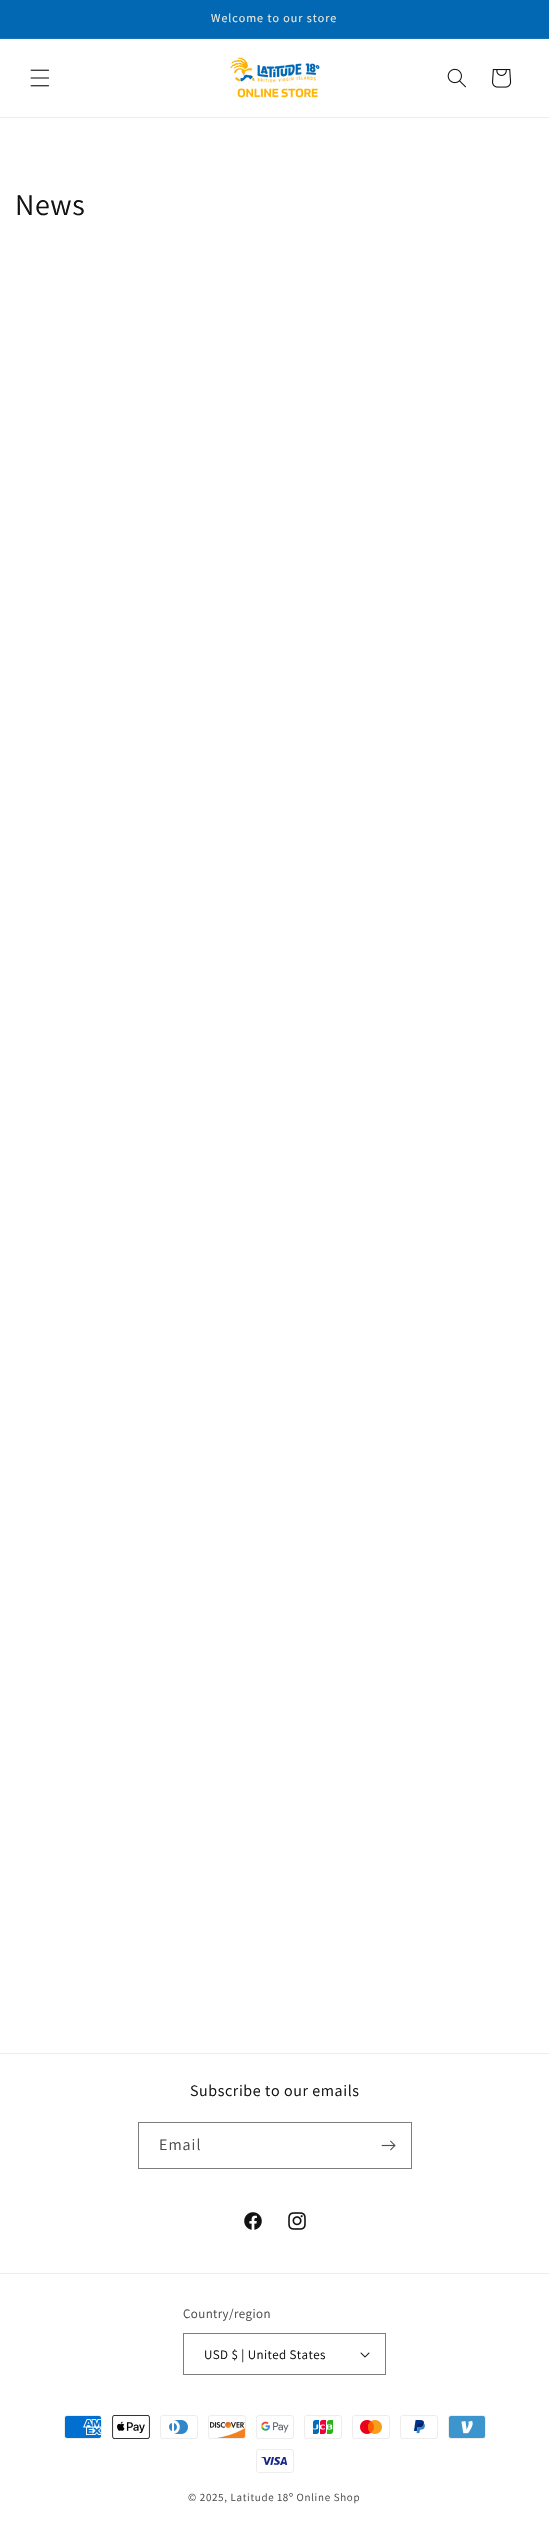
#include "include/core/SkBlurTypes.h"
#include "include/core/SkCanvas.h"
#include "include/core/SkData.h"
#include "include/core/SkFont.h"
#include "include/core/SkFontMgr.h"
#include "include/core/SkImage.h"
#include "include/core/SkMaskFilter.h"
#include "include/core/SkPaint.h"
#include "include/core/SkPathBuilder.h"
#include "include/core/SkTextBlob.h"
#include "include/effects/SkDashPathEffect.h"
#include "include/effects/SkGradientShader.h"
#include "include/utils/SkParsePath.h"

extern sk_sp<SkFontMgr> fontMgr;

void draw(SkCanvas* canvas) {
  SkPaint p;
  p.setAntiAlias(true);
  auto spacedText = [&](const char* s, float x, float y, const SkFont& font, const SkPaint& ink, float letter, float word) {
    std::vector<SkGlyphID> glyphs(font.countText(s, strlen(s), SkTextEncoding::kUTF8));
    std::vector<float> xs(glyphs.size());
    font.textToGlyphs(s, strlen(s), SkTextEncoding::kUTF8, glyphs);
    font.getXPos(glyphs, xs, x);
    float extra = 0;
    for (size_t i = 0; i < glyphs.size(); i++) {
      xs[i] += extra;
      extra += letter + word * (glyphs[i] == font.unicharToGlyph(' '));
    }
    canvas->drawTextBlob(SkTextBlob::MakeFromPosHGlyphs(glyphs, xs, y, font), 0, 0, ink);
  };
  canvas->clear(SK_ColorWHITE);
  p.setColor(SkColorSetRGB(2, 104, 179));
  canvas->drawRect(SkRect::MakeLTRB(0, 0, 549, 38), p);
  p.setColor(SkColorSetRGB(22, 115, 182));
  canvas->drawRect(SkRect::MakeLTRB(0, 38, 549, 39), p);
  p.setColor(SkColorSetRGB(236, 236, 236));
  canvas->drawRect(SkRect::MakeLTRB(0, 117, 549, 118), p);
  canvas->drawImageRect(SkImages::DeferredFromEncodedData(SkData::MakeFromFileName("images/1.png")), SkRect::MakeLTRB(30, 69, 50, 87), SkSamplingOptions());
  canvas->drawImageRect(SkImages::DeferredFromEncodedData(SkData::MakeFromFileName("images/2.png")), SkRect::MakeLTRB(230, 57, 320, 98), SkSamplingOptions());
  canvas->drawImageRect(SkImages::DeferredFromEncodedData(SkData::MakeFromFileName("images/3.png")), SkRect::MakeLTRB(447, 68, 466, 88), SkSamplingOptions());
  canvas->drawImageRect(SkImages::DeferredFromEncodedData(SkData::MakeFromFileName("images/4.png")), SkRect::MakeLTRB(492, 69, 512, 88), SkSamplingOptions());
  canvas->drawRect(SkRect::MakeLTRB(0, 2053, 549, 2054), p);
  p.setStyle(SkPaint::kStroke_Style);
  p.setStrokeWidth(1);
  p.setColor(SkColorSetRGB(125, 125, 125));
  canvas->drawRect(SkRect::MakeLTRB(138.5f, 2122.5f, 411.5f, 2168.5f), p);
  canvas->drawImageRect(SkImages::DeferredFromEncodedData(SkData::MakeFromFileName("images/5.png")), SkRect::MakeLTRB(381, 2140, 396, 2151), SkSamplingOptions());
  canvas->drawImageRect(SkImages::DeferredFromEncodedData(SkData::MakeFromFileName("images/6.png")), SkRect::MakeLTRB(244, 2212, 262, 2230), SkSamplingOptions());
  canvas->drawImageRect(SkImages::DeferredFromEncodedData(SkData::MakeFromFileName("images/7.png")), SkRect::MakeLTRB(288, 2212, 306, 2230), SkSamplingOptions());
  p.setStyle(SkPaint::kFill_Style);
  p.setColor(SkColorSetRGB(236, 236, 236));
  canvas->drawRect(SkRect::MakeLTRB(0, 2273, 549, 2274), p);
  canvas->drawImageRect(SkImages::DeferredFromEncodedData(SkData::MakeFromFileName("images/8.png")), SkRect::MakeLTRB(360, 2352, 370, 2358), SkSamplingOptions());
  p.setStyle(SkPaint::kStroke_Style);
  p.setColor(SkColorSetRGB(125, 125, 125));
  canvas->drawRect(SkRect::MakeLTRB(183.5f, 2333.5f, 385.5f, 2374.5f), p);
  canvas->drawImageRect(SkImages::DeferredFromEncodedData(SkData::MakeFromFileName("images/9.png")), SkRect::MakeLTRB(64, 2415, 102, 2439), SkSamplingOptions());
  canvas->drawImageRect(SkImages::DeferredFromEncodedData(SkData::MakeFromFileName("images/10.png")), SkRect::MakeLTRB(112, 2415, 150, 2439), SkSamplingOptions());
  canvas->drawImageRect(SkImages::DeferredFromEncodedData(SkData::MakeFromFileName("images/11.png")), SkRect::MakeLTRB(160, 2415, 198, 2439), SkSamplingOptions());
  canvas->drawImageRect(SkImages::DeferredFromEncodedData(SkData::MakeFromFileName("images/12.png")), SkRect::MakeLTRB(208, 2415, 246, 2439), SkSamplingOptions());
  canvas->drawImageRect(SkImages::DeferredFromEncodedData(SkData::MakeFromFileName("images/13.png")), SkRect::MakeLTRB(256, 2415, 294, 2439), SkSamplingOptions());
  canvas->drawImageRect(SkImages::DeferredFromEncodedData(SkData::MakeFromFileName("images/14.png")), SkRect::MakeLTRB(304, 2415, 342, 2439), SkSamplingOptions());
  canvas->drawImageRect(SkImages::DeferredFromEncodedData(SkData::MakeFromFileName("images/15.png")), SkRect::MakeLTRB(352, 2415, 390, 2439), SkSamplingOptions());
  canvas->drawImageRect(SkImages::DeferredFromEncodedData(SkData::MakeFromFileName("images/16.png")), SkRect::MakeLTRB(400, 2415, 438, 2439), SkSamplingOptions());
  canvas->drawImageRect(SkImages::DeferredFromEncodedData(SkData::MakeFromFileName("images/17.png")), SkRect::MakeLTRB(448, 2415, 486, 2439), SkSamplingOptions());
  canvas->drawImageRect(SkImages::DeferredFromEncodedData(SkData::MakeFromFileName("images/18.png")), SkRect::MakeLTRB(256, 2449, 294, 2473), SkSamplingOptions());
  SkFont font1(fontMgr->matchFamilyStyle("Assistant", SkFontStyle::Normal()), 12);
  font1.setSubpixel(true);
  p.setStyle(SkPaint::kFill_Style);
  p.setColor(SkColorSetRGB(247, 239, 222));
  spacedText("Welcome to our store", 211, 22, font1, p, 1, 0);
  SkFont font2(fontMgr->matchFamilyStyle("Assistant", SkFontStyle::Normal()), 30);
  font2.setSubpixel(true);
  p.setColor(SkColorSetRGB(18, 18, 18));
  spacedText("News", 15, 215, font2, p, 0.6f, 0);
  SkFont font3(fontMgr->matchFamilyStyle("Assistant", SkFontStyle::Normal()), 16);
  font3.setSubpixel(true);
  spacedText("Subscribe to our emails", 190, 2096, font3, p, 0.6f, 0);
  p.setColor(SkColorSetRGB(77, 77, 77));
  spacedText("Email", 159, 2150, font3, p, 1, 0);
  SkFont font4(fontMgr->matchFamilyStyle("Assistant", SkFontStyle::Normal()), 13);
  font4.setSubpixel(true);
  spacedText("Country/region", 183, 2318, font4, p, 0.4f, 0);
  p.setColor(SkColorSetRGB(18, 18, 18));
  spacedText("USD $ | United States", 204, 2359, font4, p, 0.4f, 0);
  SkFont font5(fontMgr->matchFamilyStyle("Assistant", SkFontStyle::Normal()), 11);
  font5.setSubpixel(true);
  p.setColor(SkColorSetRGB(77, 77, 77));
  spacedText("© 2025, Latitude 18º Online Shop", 188, 2501, font5, p, 0.7f, 0);
}
